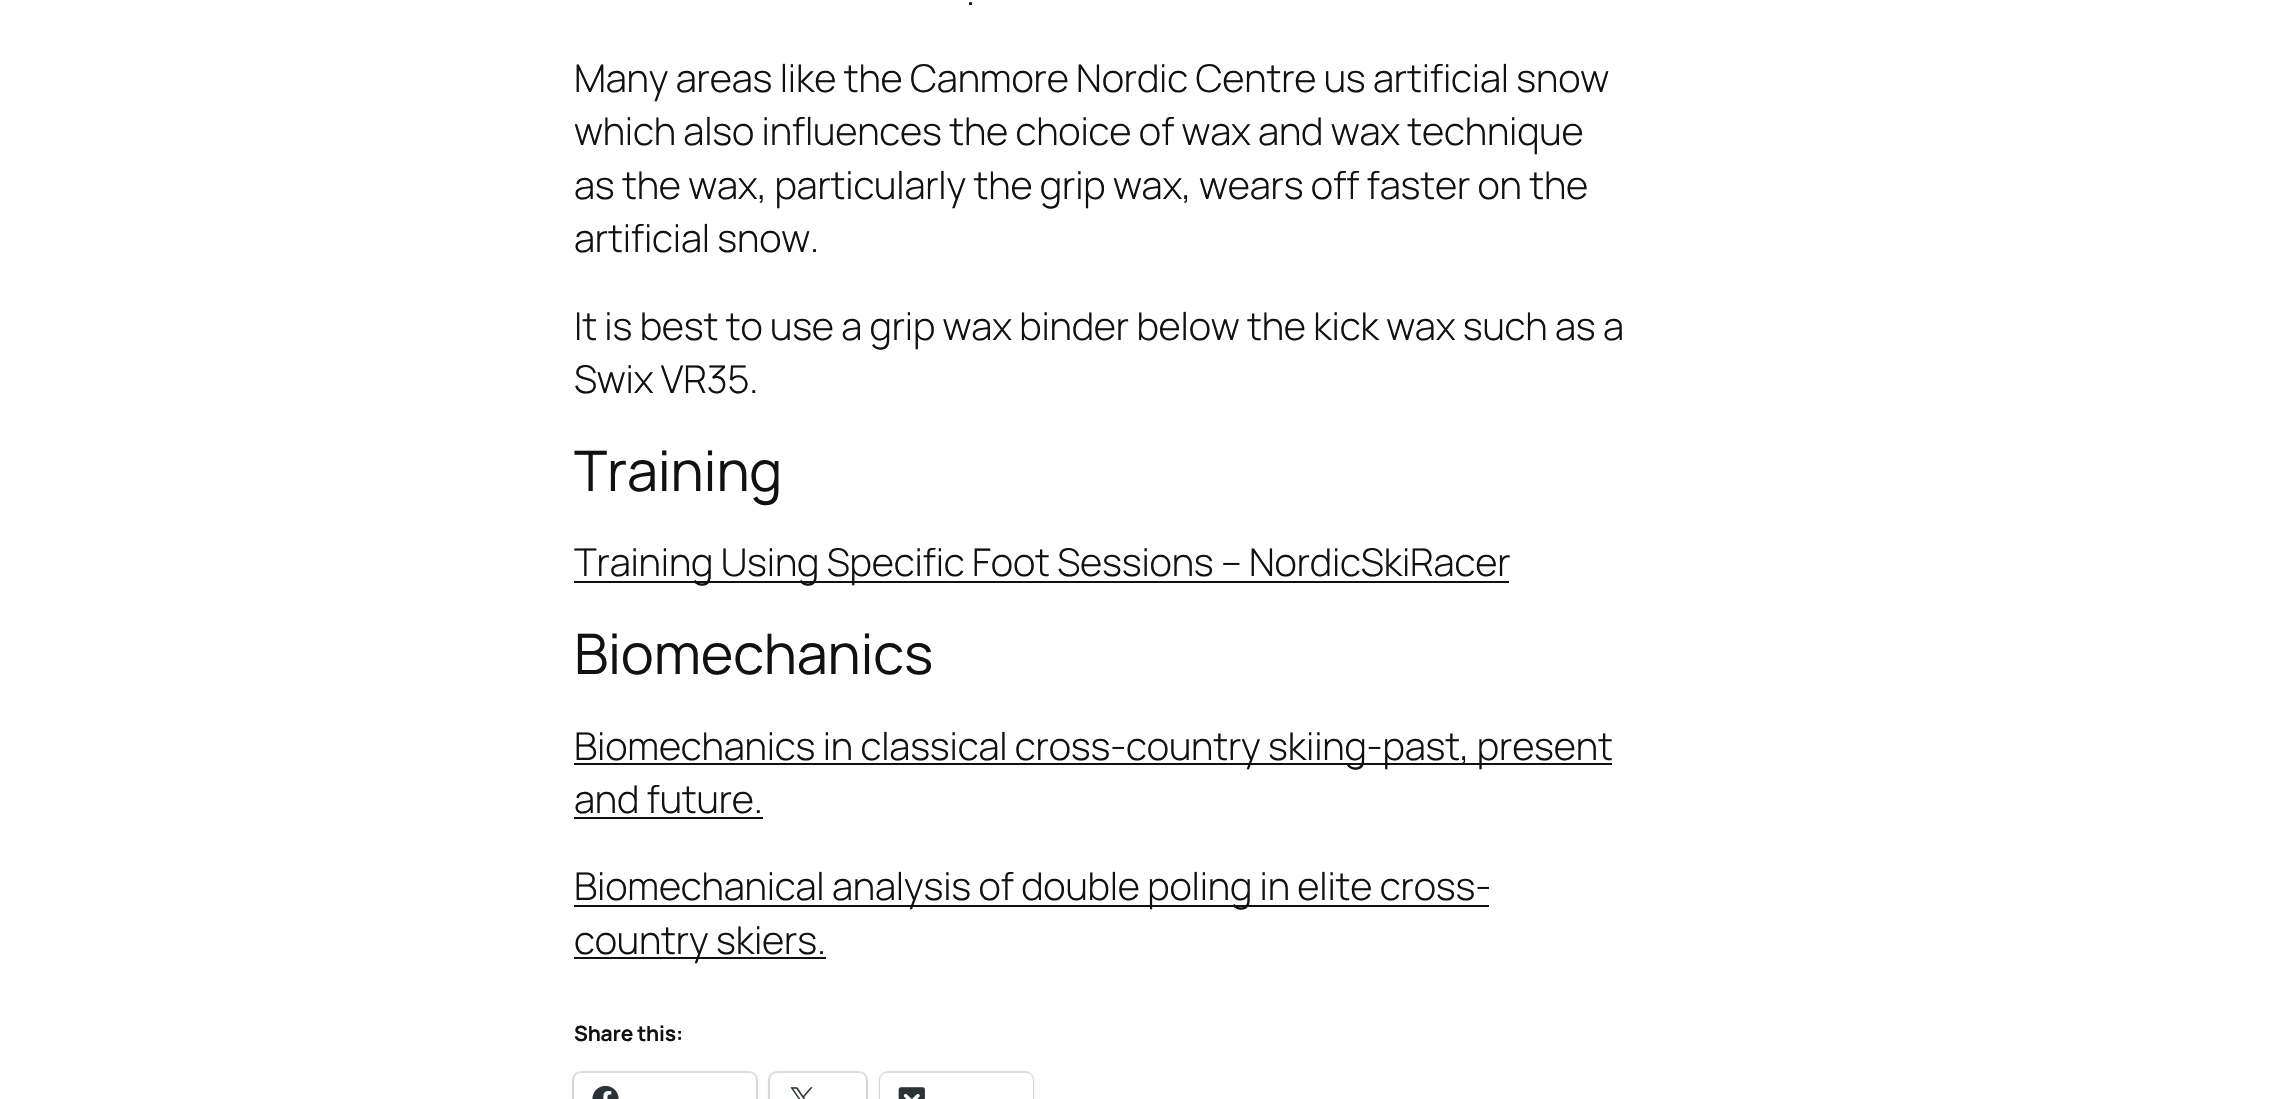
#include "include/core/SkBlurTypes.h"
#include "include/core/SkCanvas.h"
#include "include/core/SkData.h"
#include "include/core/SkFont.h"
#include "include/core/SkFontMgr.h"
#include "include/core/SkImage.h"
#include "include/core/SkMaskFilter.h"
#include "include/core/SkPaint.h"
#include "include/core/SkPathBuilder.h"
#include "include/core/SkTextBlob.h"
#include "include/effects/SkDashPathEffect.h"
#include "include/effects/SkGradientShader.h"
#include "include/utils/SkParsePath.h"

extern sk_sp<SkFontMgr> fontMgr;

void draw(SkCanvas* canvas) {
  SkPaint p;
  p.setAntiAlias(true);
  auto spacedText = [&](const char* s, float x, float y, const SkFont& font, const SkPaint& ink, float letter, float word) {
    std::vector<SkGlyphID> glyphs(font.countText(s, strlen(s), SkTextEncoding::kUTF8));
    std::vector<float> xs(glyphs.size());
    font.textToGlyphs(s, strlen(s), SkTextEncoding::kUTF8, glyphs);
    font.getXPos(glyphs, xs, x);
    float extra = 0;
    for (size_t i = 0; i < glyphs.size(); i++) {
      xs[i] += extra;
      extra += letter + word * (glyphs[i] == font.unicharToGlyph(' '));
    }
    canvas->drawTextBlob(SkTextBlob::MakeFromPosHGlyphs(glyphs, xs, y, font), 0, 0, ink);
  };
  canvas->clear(SK_ColorWHITE);
  p.setColor(SkColorSetRGB(17, 17, 17));
  canvas->drawRect(SkRect::MakeLTRB(574, 581, 1509, 583), p);
  canvas->drawRect(SkRect::MakeLTRB(574, 763, 1612, 765), p);
  canvas->drawRect(SkRect::MakeLTRB(574, 817, 763, 819), p);
  canvas->drawRect(SkRect::MakeLTRB(574, 905, 1489, 907), p);
  canvas->drawRect(SkRect::MakeLTRB(574, 957, 826, 959), p);
  p.setStyle(SkPaint::kStroke_Style);
  p.setStrokeWidth(2);
  p.setColor(SkColorSetRGB(224, 224, 224));
  canvas->drawRoundRect(SkRect::MakeLTRB(573, 1072, 757, 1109), 8, 8, p);
  p.setStyle(SkPaint::kFill_Style);
  p.setColor(SkColorSetARGB(31, 0, 0, 0));
  p.setMaskFilter(SkMaskFilter::MakeBlur(kNormal_SkBlurStyle, 2));
  canvas->drawRoundRect(SkRect::MakeLTRB(574, 1075, 756, 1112), 7, 7, p);
  p.setMaskFilter(nullptr);
  p.setColor(SK_ColorWHITE);
  canvas->drawRoundRect(SkRect::MakeLTRB(574, 1073, 756, 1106), 7, 7, p);
  canvas->drawImageRect(SkImages::DeferredFromEncodedData(SkData::MakeFromFileName("images/1.png")), SkRect::MakeLTRB(592, 1085, 619, 1099), SkSamplingOptions());
  p.setStyle(SkPaint::kStroke_Style);
  p.setColor(SkColorSetRGB(224, 224, 224));
  canvas->drawRoundRect(SkRect::MakeLTRB(769, 1072, 867, 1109), 8, 8, p);
  p.setStyle(SkPaint::kFill_Style);
  p.setColor(SkColorSetARGB(31, 0, 0, 0));
  p.setMaskFilter(SkMaskFilter::MakeBlur(kNormal_SkBlurStyle, 2));
  canvas->drawRoundRect(SkRect::MakeLTRB(770, 1075, 866, 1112), 7, 7, p);
  p.setMaskFilter(nullptr);
  p.setColor(SK_ColorWHITE);
  canvas->drawRoundRect(SkRect::MakeLTRB(770, 1073, 866, 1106), 7, 7, p);
  canvas->drawImageRect(SkImages::DeferredFromEncodedData(SkData::MakeFromFileName("images/2.png")), SkRect::MakeLTRB(790, 1087, 813, 1099), SkSamplingOptions());
  p.setStyle(SkPaint::kStroke_Style);
  p.setColor(SkColorSetRGB(224, 224, 224));
  canvas->drawRoundRect(SkRect::MakeLTRB(880, 1072, 1033, 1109), 8, 8, p);
  p.setStyle(SkPaint::kFill_Style);
  p.setColor(SkColorSetARGB(31, 0, 0, 0));
  p.setMaskFilter(SkMaskFilter::MakeBlur(kNormal_SkBlurStyle, 2));
  canvas->drawRoundRect(SkRect::MakeLTRB(880, 1075, 1033, 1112), 7, 7, p);
  p.setMaskFilter(nullptr);
  p.setColor(SK_ColorWHITE);
  canvas->drawRoundRect(SkRect::MakeLTRB(880, 1073, 1033, 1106), 7, 7, p);
  canvas->drawImageRect(SkImages::DeferredFromEncodedData(SkData::MakeFromFileName("images/3.png")), SkRect::MakeLTRB(898, 1087, 925, 1099), SkSamplingOptions());
  SkFont font1(fontMgr->matchFamilyStyle("Manrope", SkFontStyle(300, SkFontStyle::kNormal_Width, SkFontStyle::kUpright_Slant)), 38.25f);
  font1.setSubpixel(true);
  p.setColor(SkColorSetRGB(17, 17, 17));
  spacedText(".", 966, 5, font1, p, -0.18f, 0);
  spacedText("Many areas like the Canmore Nordic Centre us artificial snow", 574, 92, font1, p, -0.18f, 0);
  spacedText("which also influences the choice of wax and wax technique", 574, 145, font1, p, -0.18f, 0);
  spacedText("as the wax, particularly the grip wax, wears off faster on the", 574, 199, font1, p, -0.18f, 0);
  spacedText("artificial snow.", 574, 252, font1, p, -0.18f, 0);
  spacedText("It is best to use a grip wax binder below the kick wax such as a", 574, 340, font1, p, -0.18f, 0);
  spacedText("Swix VR35.", 574, 393, font1, p, -0.18f, 0);
  SkFont font2(fontMgr->matchFamilyStyle("Manrope", SkFontStyle::Normal()), 55.75f);
  font2.setSubpixel(true);
  spacedText("Training", 574, 491, font2, p, -0.18f, 0);
  spacedText("Training Using Specific Foot Sessions – NordicSkiRacer", 574, 576, font1, p, -0.18f, 0);
  spacedText("Biomechanics", 574, 674, font2, p, -0.18f, 0);
  spacedText("Biomechanics in classical cross-country skiing-past, present", 574, 760, font1, p, -0.18f, 0);
  spacedText("and future.", 574, 813, font1, p, -0.18f, 0);
  spacedText("Biomechanical analysis of double poling in elite cross-", 574, 900, font1, p, -0.18f, 0);
  spacedText("country skiers.", 574, 954, font1, p, -0.18f, 0);
  SkFont font3(fontMgr->matchFamilyStyle("Manrope", SkFontStyle::Bold()), 21);
  font3.setSubpixel(true);
  spacedText("Share this:", 574, 1041, font3, p, -0.18f, 0);
}
